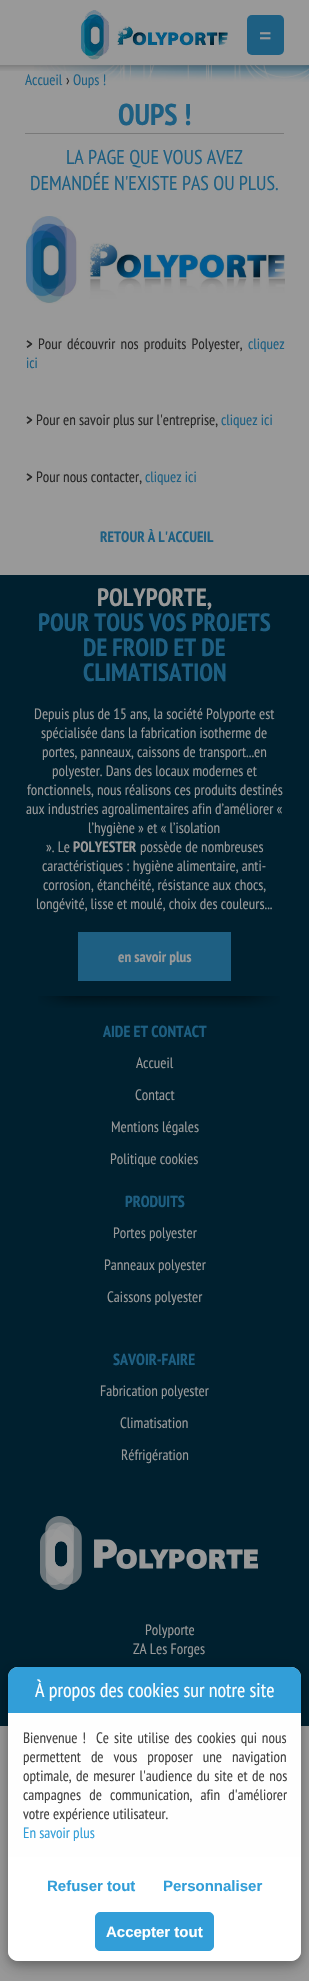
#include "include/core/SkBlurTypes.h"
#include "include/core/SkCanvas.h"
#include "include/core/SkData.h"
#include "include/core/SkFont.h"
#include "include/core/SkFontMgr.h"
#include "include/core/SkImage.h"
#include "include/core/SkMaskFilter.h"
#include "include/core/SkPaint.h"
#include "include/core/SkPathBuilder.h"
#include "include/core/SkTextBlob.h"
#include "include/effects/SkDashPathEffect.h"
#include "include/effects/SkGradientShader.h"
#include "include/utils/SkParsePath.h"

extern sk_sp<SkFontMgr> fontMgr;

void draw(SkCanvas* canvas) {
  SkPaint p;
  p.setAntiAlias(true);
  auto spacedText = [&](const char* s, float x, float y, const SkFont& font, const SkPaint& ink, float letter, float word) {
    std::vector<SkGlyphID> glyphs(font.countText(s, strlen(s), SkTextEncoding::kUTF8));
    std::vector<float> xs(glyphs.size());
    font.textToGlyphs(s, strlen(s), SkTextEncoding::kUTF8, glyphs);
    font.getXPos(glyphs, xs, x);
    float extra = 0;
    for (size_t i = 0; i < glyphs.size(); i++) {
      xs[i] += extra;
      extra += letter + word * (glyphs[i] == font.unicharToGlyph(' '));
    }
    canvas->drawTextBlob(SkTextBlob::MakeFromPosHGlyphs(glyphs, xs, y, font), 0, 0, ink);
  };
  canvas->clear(SkColorSetRGB(153, 153, 153));
  canvas->drawImageRect(SkImages::DeferredFromEncodedData(SkData::MakeFromFileName("images/1.png")), SkRect::MakeLTRB(81, 10, 228, 60), SkSamplingOptions());
  p.setColor(SkColorSetRGB(30, 95, 130));
  canvas->drawRoundRect(SkRect::MakeLTRB(247, 15, 284, 55), 5, 5, p);
  canvas->drawImageRect(SkImages::DeferredFromEncodedData(SkData::MakeFromFileName("images/3.png")), SkRect::MakeLTRB(34, 65, 309, 82), SkSamplingOptions());
  canvas->drawImageRect(SkImages::DeferredFromEncodedData(SkData::MakeFromFileName("images/2.png")), SkRect::MakeLTRB(0, 65, 309, 71), SkSamplingOptions());
  p.setColor(SkColorSetRGB(121, 121, 121));
  canvas->drawRect(SkRect::MakeLTRB(25, 133, 284, 134), p);
  canvas->drawImageRect(SkImages::DeferredFromEncodedData(SkData::MakeFromFileName("images/4.png")), SkRect::MakeLTRB(26, 216, 285, 304), SkSamplingOptions());
  p.setColor(SkColorSetRGB(0, 32, 47));
  canvas->drawRect(SkRect::MakeLTRB(0, 575, 309, 1726), p);
  p.setColor(SkColorSetRGB(30, 95, 130));
  canvas->drawRect(SkRect::MakeLTRB(78, 932, 231, 981), p);
  canvas->drawImageRect(SkImages::DeferredFromEncodedData(SkData::MakeFromFileName("images/5.png")), SkRect::MakeLTRB(38, 996, 280, 1008), SkSamplingOptions());
  canvas->drawImageRect(SkImages::DeferredFromEncodedData(SkData::MakeFromFileName("images/6.png")), SkRect::MakeLTRB(40, 1516, 258, 1590), SkSamplingOptions());
  p.setColor(SkColorSetARGB(48, 0, 0, 0));
  p.setMaskFilter(SkMaskFilter::MakeBlur(kNormal_SkBlurStyle, 10));
  canvas->drawRoundRect(SkRect::MakeLTRB(8, 1673, 301, 1967), 10, 10, p);
  p.setMaskFilter(nullptr);
  p.setColor(SkColorSetARGB(51, 0, 0, 0));
  p.setMaskFilter(SkMaskFilter::MakeBlur(kNormal_SkBlurStyle, 4));
  canvas->drawRoundRect(SkRect::MakeLTRB(8, 1671, 301, 1965), 10, 10, p);
  p.setMaskFilter(nullptr);
  p.setColor(SkColorSetRGB(254, 254, 254));
  canvas->drawRoundRect(SkRect::MakeLTRB(8, 1667, 301, 1961), 10, 10, p);
  p.setColor(SkColorSetRGB(50, 158, 216));
  canvas->drawPath(SkPathBuilder().moveTo(18, 1667).lineTo(291, 1667).cubicTo(296.5f, 1667, 301, 1671.5f, 301, 1677).lineTo(301, 1713).lineTo(8, 1713).lineTo(8, 1677).cubicTo(8, 1671.5f, 12.5f, 1667, 18, 1667).close().detach(), p);
  p.setColor(SK_ColorWHITE);
  canvas->drawPath(SkPathBuilder().moveTo(8, 1857).lineTo(301, 1857).lineTo(301, 1951).cubicTo(301, 1956.5f, 296.5f, 1961, 291, 1961).lineTo(18, 1961).cubicTo(12.5f, 1961, 8, 1956.5f, 8, 1951).close().detach(), p);
  p.setColor(SkColorSetRGB(50, 158, 216));
  canvas->drawRoundRect(SkRect::MakeLTRB(95.5f, 1912.5f, 213.5f, 1950.5f), 4.5f, 4.5f, p);
  p.setStyle(SkPaint::kStroke_Style);
  p.setStrokeWidth(1);
  canvas->drawRoundRect(SkRect::MakeLTRB(95.5f, 1912.5f, 213.5f, 1950.5f), 4.5f, 4.5f, p);
  SkFont font1(fontMgr->matchFamilyStyle("PT Sans Narrow", SkFontStyle::Normal()), 30);
  font1.setSubpixel(true);
  p.setStyle(SkPaint::kFill_Style);
  p.setColor(SkColorSetRGB(153, 153, 153));
  canvas->drawString("=", 259, 46, font1, p);
  SkFont font2(fontMgr->matchFamilyStyle("PT Sans Narrow", SkFontStyle::Normal()), 15);
  font2.setSubpixel(true);
  p.setColor(SkColorSetRGB(30, 95, 130));
  canvas->drawString("Accueil", 25, 85, font2, p);
  p.setColor(SkColorSetRGB(40, 40, 40));
  canvas->drawString("›", 66, 85, font2, p);
  p.setColor(SkColorSetRGB(30, 95, 130));
  canvas->drawString("Oups !", 73, 85, font2, p);
  SkFont font3(fontMgr->matchFamilyStyle("PT Sans Narrow", SkFontStyle::Bold()), 30);
  font3.setSubpixel(true);
  canvas->drawString("OUPS !", 118, 125, font3, p);
  SkFont font4(fontMgr->matchFamilyStyle("PT Sans Narrow", SkFontStyle::Normal()), 20);
  font4.setSubpixel(true);
  canvas->drawString("LA PAGE QUE VOUS AVEZ", 66, 164, font4, p);
  canvas->drawString("DEMANDÉE N'EXISTE PAS OU PLUS.", 30, 190, font4, p);
  SkFont font5(fontMgr->matchFamilyStyle("PT Sans Narrow", SkFontStyle::Bold()), 15);
  font5.setSubpixel(true);
  p.setColor(SkColorSetRGB(40, 40, 40));
  canvas->drawString(">", 26, 349, font5, p);
  spacedText("Pour découvrir nos produits Polyester,", 38, 349, font2, p, 0, 2);
  p.setColor(SkColorSetRGB(30, 95, 130));
  canvas->drawString("cliquez", 248, 349, font2, p);
  canvas->drawString("ici", 26, 368, font2, p);
  p.setColor(SkColorSetRGB(40, 40, 40));
  canvas->drawString(">", 26, 425, font5, p);
  canvas->drawString("Pour en savoir plus sur l'entreprise,", 36, 425, font2, p);
  p.setColor(SkColorSetRGB(30, 95, 130));
  canvas->drawString("cliquez ici", 221, 425, font2, p);
  p.setColor(SkColorSetRGB(40, 40, 40));
  canvas->drawString(">", 26, 482, font5, p);
  canvas->drawString("Pour nous contacter,", 36, 482, font2, p);
  p.setColor(SkColorSetRGB(30, 95, 130));
  canvas->drawString("cliquez ici", 145, 482, font2, p);
  canvas->drawString("RETOUR À L'ACCUEIL", 100, 542, font5, p);
  SkFont font6(fontMgr->matchFamilyStyle("PT Sans Narrow", SkFontStyle::Bold()), 25);
  font6.setSubpixel(true);
  p.setColor(SkColorSetRGB(153, 153, 153));
  canvas->drawString("POLYPORTE,", 97, 606, font6, p);
  p.setColor(SkColorSetRGB(30, 95, 130));
  canvas->drawString("POUR TOUS VOS PROJETS", 38, 631, font6, p);
  canvas->drawString("DE FROID ET DE", 83, 656, font6, p);
  canvas->drawString("CLIMATISATION", 83, 681, font6, p);
  p.setColor(SkColorSetRGB(153, 153, 153));
  canvas->drawString("Depuis plus de 15 ans, la société Polyporte est", 34, 719, font2, p);
  canvas->drawString("spécialisée dans la fabrication isotherme de", 41, 738, font2, p);
  canvas->drawString("portes, panneaux, caissons de transport...en", 42, 757, font2, p);
  canvas->drawString("polyester. Dans des locaux modernes et", 52, 776, font2, p);
  canvas->drawString("fonctionnels, nous réalisons ces produits destinés", 27, 795, font2, p);
  canvas->drawString("aux industries agroalimentaires afin d’améliorer «", 26, 814, font2, p);
  canvas->drawString("l’hygiène » et « l’isolation", 88, 833, font2, p);
  canvas->drawString("». Le", 46, 852, font2, p);
  canvas->drawString("POLYESTER", 73, 852, font5, p);
  canvas->drawString("possède de nombreuses", 140, 852, font2, p);
  canvas->drawString("caractéristiques : hygiène alimentaire, anti-", 42, 871, font2, p);
  canvas->drawString("corrosion, étanchéité, résistance aux chocs,", 43, 890, font2, p);
  canvas->drawString("longévité, lisse et moulé, choix des couleurs...", 36, 909, font2, p);
  canvas->drawString("en savoir plus", 118, 962, font5, p);
  SkFont font7(fontMgr->matchFamilyStyle("PT Sans Narrow", SkFontStyle::Bold()), 16);
  font7.setSubpixel(true);
  p.setColor(SkColorSetRGB(30, 95, 130));
  canvas->drawString("AIDE ET CONTACT", 103, 1037, font7, p);
  p.setColor(SkColorSetRGB(153, 153, 153));
  canvas->drawString("Accueil", 136, 1068, font2, p);
  canvas->drawString("Contact", 135, 1100, font2, p);
  canvas->drawString("Mentions légales", 111, 1132, font2, p);
  canvas->drawString("Politique cookies", 110, 1164, font2, p);
  p.setColor(SkColorSetRGB(30, 95, 130));
  canvas->drawString("PRODUITS", 125, 1207, font7, p);
  p.setColor(SkColorSetRGB(153, 153, 153));
  canvas->drawString("Portes polyester", 113, 1238, font2, p);
  canvas->drawString("Panneaux polyester", 104, 1270, font2, p);
  canvas->drawString("Caissons polyester", 107, 1302, font2, p);
  p.setColor(SkColorSetRGB(30, 95, 130));
  canvas->drawString("SAVOIR-FAIRE", 113, 1365, font7, p);
  p.setColor(SkColorSetRGB(153, 153, 153));
  canvas->drawString("Fabrication polyester", 100, 1396, font2, p);
  canvas->drawString("Climatisation", 120, 1428, font2, p);
  canvas->drawString("Réfrigération", 121, 1460, font2, p);
  canvas->drawString("Polyporte", 145, 1635, font2, p);
  canvas->drawString("ZA Les Forges", 133, 1654, font2, p);
  p.setColor(SK_ColorWHITE);
  canvas->drawString("À propos des cookies sur notre site", 35, 1697, font4, p);
  p.setColor(SkColorSetRGB(67, 67, 67));
  spacedText("Bienvenue !", 23, 1743, font2, p, 0, 1.75f);
  spacedText("Ce site utilise des cookies qui nous", 96, 1743, font2, p, 0, 1.75f);
  spacedText("permettent de vous proposer une navigation", 23, 1762, font2, p, 0, 6.75f);
  spacedText("optimale, de mesurer l'audience du site et de nos", 23, 1781, font2, p, 0, 1.25f);
  spacedText("campagnes de communication, afin d'améliorer", 23, 1800, font2, p, 0, 5);
  canvas->drawString("votre expérience utilisateur.", 23, 1819, font2, p);
  p.setColor(SkColorSetRGB(50, 158, 216));
  canvas->drawString("En savoir plus", 23, 1838, font2, p);
  SkFont font8(fontMgr->matchFamilyStyle("Liberation Sans", SkFontStyle::Bold()), 15);
  font8.setSubpixel(true);
  canvas->drawString("Refuser tout", 47, 1891, font8, p);
  canvas->drawString("Personnaliser", 163, 1891, font8, p);
  p.setColor(SK_ColorWHITE);
  canvas->drawString("Accepter tout", 106, 1937, font8, p);
}
